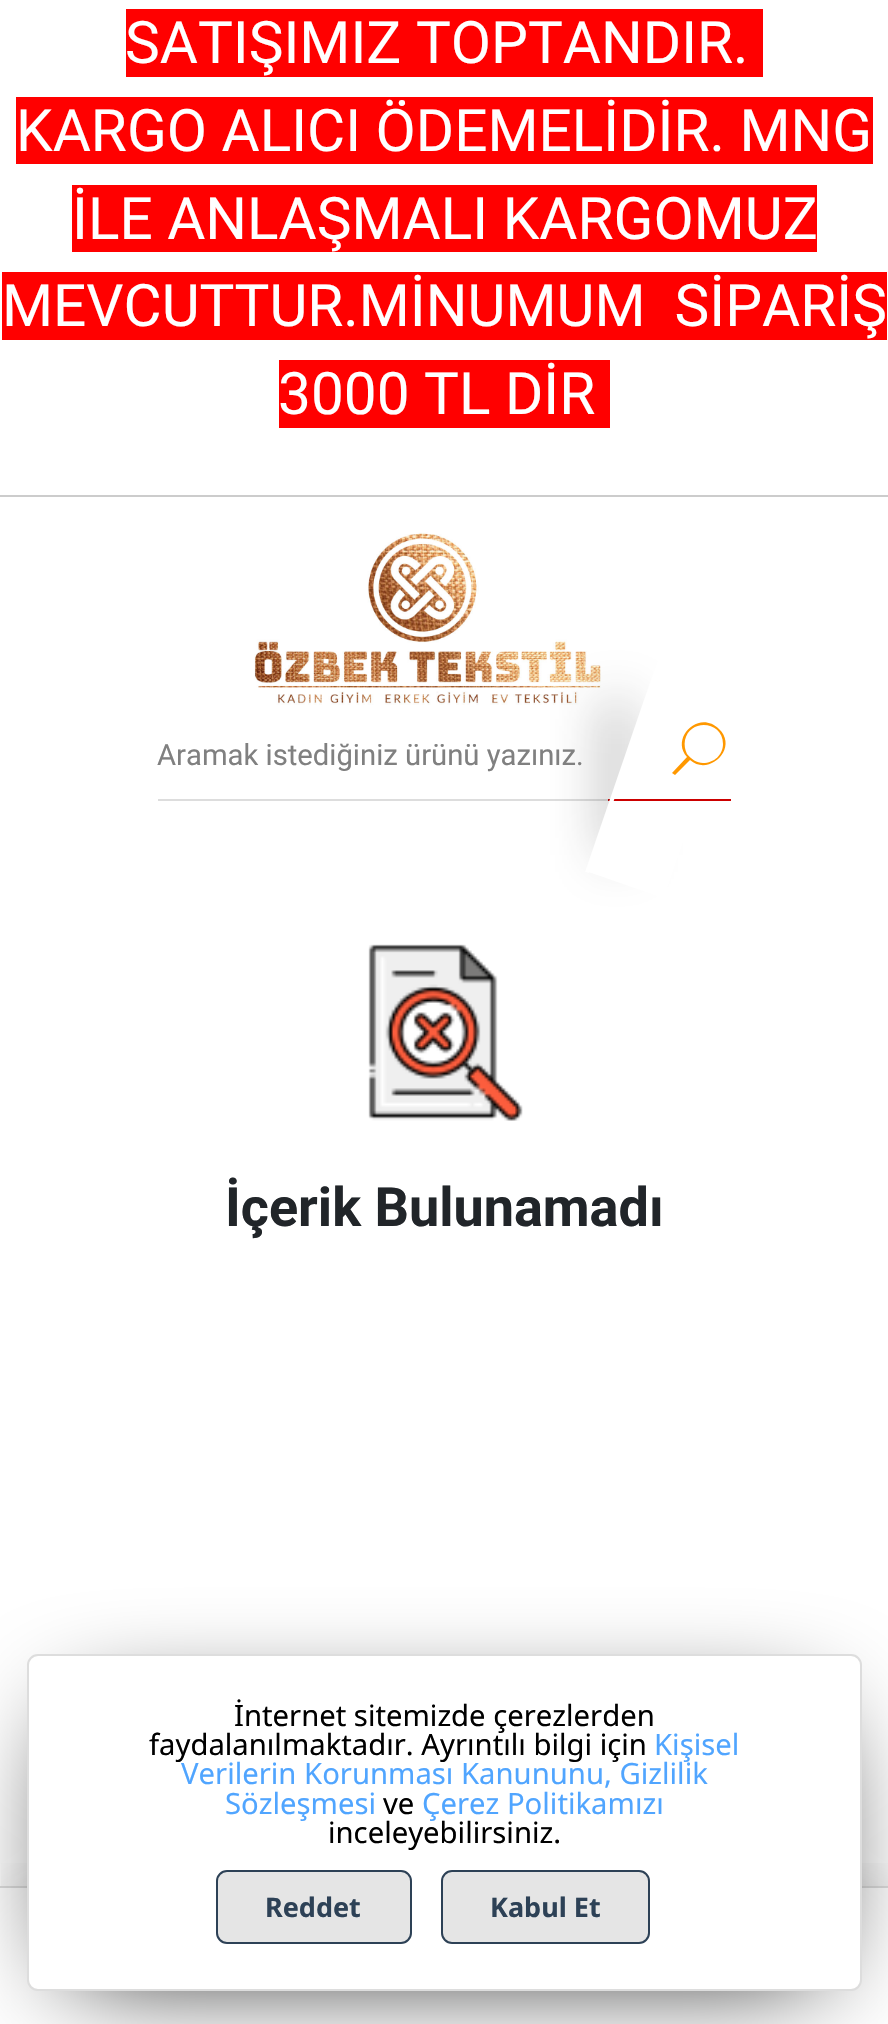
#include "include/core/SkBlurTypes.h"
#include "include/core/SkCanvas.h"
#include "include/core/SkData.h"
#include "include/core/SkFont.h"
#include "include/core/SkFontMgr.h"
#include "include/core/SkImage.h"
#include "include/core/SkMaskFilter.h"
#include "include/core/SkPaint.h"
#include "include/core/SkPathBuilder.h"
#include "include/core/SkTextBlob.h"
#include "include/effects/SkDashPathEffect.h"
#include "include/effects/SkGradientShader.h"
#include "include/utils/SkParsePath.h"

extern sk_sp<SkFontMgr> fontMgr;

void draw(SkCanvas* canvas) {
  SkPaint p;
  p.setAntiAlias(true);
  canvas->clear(SK_ColorWHITE);
  p.setColor(SkColorSetRGB(255, 0, 0));
  canvas->drawRect(SkRect::MakeLTRB(126, 9, 763, 77), p);
  canvas->drawRect(SkRect::MakeLTRB(16, 97, 873, 164), p);
  canvas->drawRect(SkRect::MakeLTRB(72, 185, 817, 252), p);
  canvas->drawRect(SkRect::MakeLTRB(2, 272, 887, 340), p);
  canvas->drawRect(SkRect::MakeLTRB(279, 360, 610, 428), p);
  p.setColor(SkColorSetRGB(204, 204, 204));
  canvas->drawRect(SkRect::MakeLTRB(0, 495, 888, 497), p);
  canvas->drawImageRect(SkImages::DeferredFromEncodedData(SkData::MakeFromFileName("images/1.png")), SkRect::MakeLTRB(254, 532, 601, 705), SkSamplingOptions());
  p.setColor(SkColorSetRGB(221, 221, 221));
  canvas->drawRect(SkRect::MakeLTRB(158, 799, 610, 801), p);
  p.setColor(SkColorSetRGB(204, 0, 0));
  canvas->drawRect(SkRect::MakeLTRB(608, 799, 731, 801), p);
  canvas->save();
  canvas->clipPath(SkPathBuilder(SkPathFillType::kEvenOdd).moveTo(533, 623).lineTo(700, 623).lineTo(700, 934).lineTo(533, 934).close().moveTo(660.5f, 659).lineTo(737, 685.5f).lineTo(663.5f, 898).lineTo(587, 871.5f).close().detach(), true);
  p.setColor(SkColorSetRGB(43, 43, 43));
  p.setMaskFilter(SkMaskFilter::MakeBlur(kNormal_SkBlurStyle, 26));
  canvas->drawRect(SkRect::MakeLTRB(612, 702, 621, 855), p);
  p.setMaskFilter(nullptr);
  canvas->restore();
  p.setColor(SK_ColorWHITE);
  canvas->drawPath(SkPathBuilder().moveTo(658, 659).lineTo(662, 660).lineTo(589, 873).lineTo(585, 872).close().detach(), p);
  p.setColor(SkColorSetRGB(255, 152, 0));
  canvas->drawPath(SkPathBuilder().moveTo(672, 773).lineTo(687, 757).cubicTo(670, 738, 699, 709, 719, 729).cubicTo(739, 748, 709, 777, 690, 760).lineTo(675, 775).close().moveTo(723, 744).cubicTo(723, 721, 690, 718, 685, 740).cubicTo(684, 745, 685, 750, 687, 754).cubicTo(691, 759, 697, 763, 703, 763).cubicTo(714, 763, 723, 755, 723, 744).close().detach(), p);
  canvas->save();
  canvas->clipRect(SkRect::MakeLTRB(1, 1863, 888, 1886));
  p.setColor(SkColorSetARGB(128, 0, 0, 0));
  p.setMaskFilter(SkMaskFilter::MakeBlur(kNormal_SkBlurStyle, 34));
  canvas->drawRect(SkRect::MakeLTRB(23, 1919, 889, 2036), p);
  p.setMaskFilter(nullptr);
  canvas->restore();
  p.setColor(SkColorSetRGB(221, 221, 221));
  canvas->drawRect(SkRect::MakeLTRB(0, 1886, 888, 1888), p);
  canvas->drawImageRect(SkImages::DeferredFromEncodedData(SkData::MakeFromFileName("images/2.png")), SkRect::MakeLTRB(368, 944, 523, 1121), SkSamplingOptions());
  p.setColor(SK_ColorBLACK);
  p.setMaskFilter(SkMaskFilter::MakeBlur(kNormal_SkBlurStyle, 56));
  canvas->drawRect(SkRect::MakeLTRB(72, 1721, 817, 1969), p);
  p.setMaskFilter(nullptr);
  p.setColor(SK_ColorWHITE);
  canvas->drawRoundRect(SkRect::MakeLTRB(28, 1655, 861, 1990), 10, 10, p);
  p.setStyle(SkPaint::kStroke_Style);
  p.setStrokeWidth(2);
  p.setColor(SkColorSetRGB(221, 221, 221));
  canvas->drawRoundRect(SkRect::MakeLTRB(28, 1655, 861, 1990), 10, 10, p);
  p.setStyle(SkPaint::kFill_Style);
  p.setColor(SkColorSetRGB(229, 229, 229));
  canvas->drawRoundRect(SkRect::MakeLTRB(217, 1871, 411, 1943), 10, 10, p);
  p.setStyle(SkPaint::kStroke_Style);
  p.setColor(SkColorSetRGB(45, 65, 86));
  canvas->drawRoundRect(SkRect::MakeLTRB(217, 1871, 411, 1943), 10, 10, p);
  p.setStyle(SkPaint::kFill_Style);
  p.setColor(SkColorSetRGB(229, 229, 229));
  canvas->drawRoundRect(SkRect::MakeLTRB(442, 1871, 649, 1943), 10, 10, p);
  p.setStyle(SkPaint::kStroke_Style);
  p.setColor(SkColorSetRGB(45, 65, 86));
  canvas->drawRoundRect(SkRect::MakeLTRB(442, 1871, 649, 1943), 10, 10, p);
  SkFont font1(fontMgr->matchFamilyStyle("Roboto", SkFontStyle::Normal()), 58.5f);
  font1.setSubpixel(true);
  p.setStyle(SkPaint::kFill_Style);
  p.setColor(SK_ColorWHITE);
  canvas->drawString("SATIŞIMIZ TOPTANDIR.", 125, 63, font1, p);
  canvas->drawString("KARGO ALICI ÖDEMELİDİR. MNG", 16, 151, font1, p);
  canvas->drawString("İLE ANLAŞMALI KARGOMUZ", 72, 239, font1, p);
  canvas->drawString("MEVCUTTUR.MİNUMUM  SİPARİŞ", 2, 326, font1, p);
  canvas->drawString("3000 TL DİR", 278, 414, font1, p);
  SkFont font2(fontMgr->matchFamilyStyle("Roboto", SkFontStyle::Normal()), 29.25f);
  font2.setSubpixel(true);
  p.setColor(SkColorSetRGB(128, 128, 128));
  canvas->drawString("Aramak istediğiniz ürünü yazınız.", 157, 765, font2, p);
  SkFont font3(fontMgr->matchFamilyStyle("Roboto", SkFontStyle::Bold()), 54);
  font3.setSubpixel(true);
  p.setColor(SkColorSetRGB(33, 37, 41));
  canvas->drawString("İçerik Bulunamadı", 225, 1226, font3, p);
  SkFont font4(fontMgr->matchFamilyStyle("Noto Sans", SkFontStyle::Normal()), 29.25f);
  font4.setSubpixel(true);
  p.setColor(SK_ColorBLACK);
  canvas->drawString("İnternet sitemizde çerezlerden", 234, 1726, font4, p);
  canvas->drawString("faydalanılmaktadır. Ayrıntılı bilgi için", 149, 1755, font4, p);
  p.setColor(SkColorSetRGB(80, 165, 255));
  canvas->drawString("Kişisel", 654, 1755, font4, p);
  canvas->drawString("Verilerin Korunması Kanununu, Gizlilik", 181, 1784, font4, p);
  canvas->drawString("Sözleşmesi", 225, 1814, font4, p);
  p.setColor(SK_ColorBLACK);
  canvas->drawString("ve", 383, 1814, font4, p);
  p.setColor(SkColorSetRGB(80, 165, 255));
  canvas->drawString("Çerez Politikamızı", 422, 1814, font4, p);
  p.setColor(SK_ColorBLACK);
  canvas->drawString("inceleyebilirsiniz.", 328, 1843, font4, p);
  SkFont font5(fontMgr->matchFamilyStyle("Noto Sans", SkFontStyle::Bold()), 27);
  font5.setSubpixel(true);
  p.setColor(SkColorSetRGB(45, 65, 86));
  canvas->drawString("Reddet", 265, 1917, font5, p);
  canvas->drawString("Kabul Et", 490, 1917, font5, p);
}
